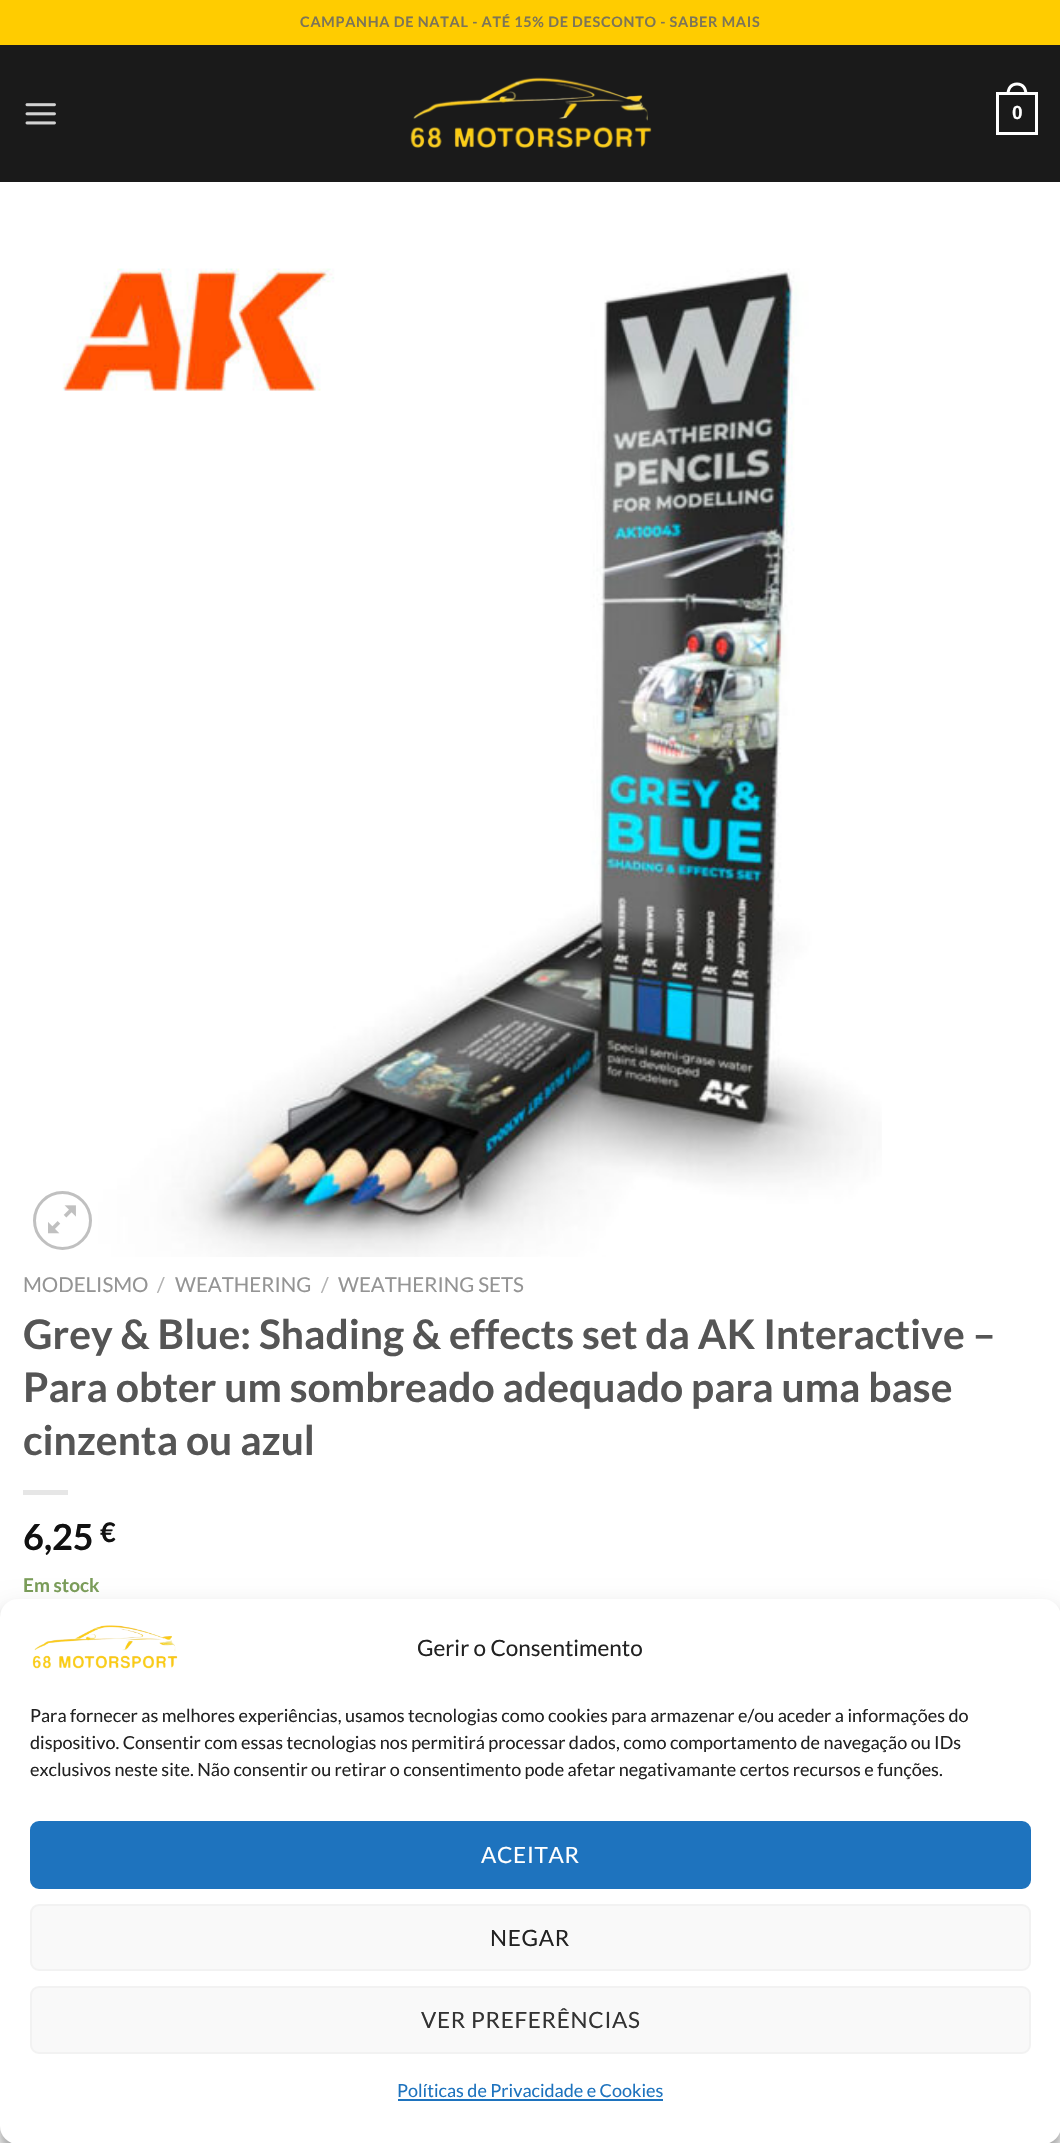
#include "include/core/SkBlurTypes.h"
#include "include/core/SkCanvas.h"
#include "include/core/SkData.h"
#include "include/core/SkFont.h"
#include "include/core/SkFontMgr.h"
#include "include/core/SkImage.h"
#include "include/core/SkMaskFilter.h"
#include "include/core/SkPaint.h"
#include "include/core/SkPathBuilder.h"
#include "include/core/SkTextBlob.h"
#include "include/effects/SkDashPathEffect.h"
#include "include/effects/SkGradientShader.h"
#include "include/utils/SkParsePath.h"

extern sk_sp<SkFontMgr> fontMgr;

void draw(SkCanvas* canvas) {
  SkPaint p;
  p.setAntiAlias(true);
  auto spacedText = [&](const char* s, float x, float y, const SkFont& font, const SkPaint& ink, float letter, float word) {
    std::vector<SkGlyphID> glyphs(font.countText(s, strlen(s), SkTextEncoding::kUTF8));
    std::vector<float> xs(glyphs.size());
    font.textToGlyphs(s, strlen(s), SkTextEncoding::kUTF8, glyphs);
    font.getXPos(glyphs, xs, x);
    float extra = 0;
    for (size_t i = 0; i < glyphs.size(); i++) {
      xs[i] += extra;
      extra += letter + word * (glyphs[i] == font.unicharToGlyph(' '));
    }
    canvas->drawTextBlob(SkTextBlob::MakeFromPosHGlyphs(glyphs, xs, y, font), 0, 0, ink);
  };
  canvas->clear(SK_ColorWHITE);
  p.setColor(SkColorSetRGB(255, 204, 0));
  canvas->drawRect(SkRect::MakeLTRB(0, 0, 1060, 45), p);
  p.setColor(SkColorSetRGB(26, 26, 26));
  canvas->drawRect(SkRect::MakeLTRB(0, 45, 1060, 182), p);
  canvas->drawImageRect(SkImages::DeferredFromEncodedData(SkData::MakeFromFileName("images/1.png")), SkRect::MakeLTRB(25, 103, 56, 125), SkSamplingOptions());
  canvas->drawImageRect(SkImages::DeferredFromEncodedData(SkData::MakeFromFileName("images/2.png")), SkRect::MakeLTRB(410, 77, 652, 148), SkSamplingOptions());
  p.setStyle(SkPaint::kStroke_Style);
  p.setStrokeWidth(3);
  p.setColor(SK_ColorWHITE);
  canvas->drawRect(SkRect::MakeLTRB(997.5f, 93.5f, 1036.5f, 133.5f), p);
  p.setStyle(SkPaint::kFill_Style);
  canvas->drawPath(SkPathBuilder(SkPathFillType::kEvenOdd).moveTo(1017, 82.5f).cubicTo(1024, 82.5f, 1027.5f, 88, 1027.5f, 94.5f).lineTo(1006.5f, 94.5f).cubicTo(1006.5f, 88, 1010, 82.5f, 1017, 82.5f).close().moveTo(1017, 85.5f).cubicTo(1022.5f, 85.5f, 1024.5f, 90, 1024.5f, 94.5f).lineTo(1009.5f, 94.5f).cubicTo(1009.5f, 90, 1011.5f, 85.5f, 1017, 85.5f).close().detach(), p);
  canvas->drawImageRect(SkImages::DeferredFromEncodedData(SkData::MakeFromFileName("images/3.png")), SkRect::MakeLTRB(62, 268, 882, 1257), SkSamplingOptions());
  p.setStyle(SkPaint::kStroke_Style);
  p.setColor(SkColorSetRGB(192, 192, 192));
  canvas->drawCircle(62.5f, 1220.5f, 28, p);
  canvas->drawImageRect(SkImages::DeferredFromEncodedData(SkData::MakeFromFileName("images/4.png")), SkRect::MakeLTRB(48, 1205, 76, 1234), SkSamplingOptions());
  p.setStyle(SkPaint::kFill_Style);
  p.setColor(SkColorSetRGB(230, 230, 230));
  canvas->drawRect(SkRect::MakeLTRB(23, 1490, 68, 1495), p);
  p.setColor(SkColorSetARGB(59, 0, 0, 0));
  p.setMaskFilter(SkMaskFilter::MakeBlur(kNormal_SkBlurStyle, 4.5f));
  canvas->drawRoundRect(SkRect::MakeLTRB(0, 1608, 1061, 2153), 18, 18, p);
  p.setMaskFilter(nullptr);
  p.setColor(SkColorSetARGB(48, 0, 0, 0));
  p.setMaskFilter(SkMaskFilter::MakeBlur(kNormal_SkBlurStyle, 15));
  canvas->drawRoundRect(SkRect::MakeLTRB(0, 1614, 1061, 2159), 18, 18, p);
  p.setMaskFilter(nullptr);
  p.setColor(SK_ColorWHITE);
  canvas->drawRoundRect(SkRect::MakeLTRB(0, 1599, 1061, 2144), 18, 18, p);
  canvas->drawImageRect(SkImages::DeferredFromEncodedData(SkData::MakeFromFileName("images/5.png")), SkRect::MakeLTRB(32, 1625, 178, 1669), SkSamplingOptions());
  p.setColor(SkColorSetRGB(30, 115, 190));
  canvas->drawRoundRect(SkRect::MakeLTRB(31, 1822, 1030, 1888), 8, 8, p);
  p.setStyle(SkPaint::kStroke_Style);
  p.setStrokeWidth(2);
  canvas->drawRoundRect(SkRect::MakeLTRB(31, 1822, 1030, 1888), 8, 8, p);
  p.setStyle(SkPaint::kFill_Style);
  p.setColor(SkColorSetRGB(249, 249, 249));
  canvas->drawRoundRect(SkRect::MakeLTRB(31, 1905, 1030, 1970), 8, 8, p);
  p.setStyle(SkPaint::kStroke_Style);
  p.setColor(SkColorSetRGB(242, 242, 242));
  canvas->drawRoundRect(SkRect::MakeLTRB(31, 1905, 1030, 1970), 8, 8, p);
  p.setStyle(SkPaint::kFill_Style);
  p.setColor(SkColorSetRGB(249, 249, 249));
  canvas->drawRoundRect(SkRect::MakeLTRB(31, 1987, 1030, 2053), 8, 8, p);
  p.setStyle(SkPaint::kStroke_Style);
  p.setColor(SkColorSetRGB(242, 242, 242));
  canvas->drawRoundRect(SkRect::MakeLTRB(31, 1987, 1030, 2053), 8, 8, p);
  p.setStyle(SkPaint::kFill_Style);
  p.setColor(SkColorSetRGB(30, 115, 190));
  canvas->drawRect(SkRect::MakeLTRB(398, 2099, 663, 2101), p);
  SkFont font1(fontMgr->matchFamilyStyle("Lato", SkFontStyle::Bold()), 14.4f);
  font1.setSubpixel(true);
  p.setColor(SkColorSetRGB(125, 117, 87));
  spacedText("CAMPANHA DE NATAL - ATÉ 15% DE DESCONTO - SABER MAIS", 300, 27, font1, p, 0.72f, 0);
  SkFont font2(fontMgr->matchFamilyStyle("Liberation Sans", SkFontStyle::Bold()), 19);
  font2.setSubpixel(true);
  p.setColor(SK_ColorWHITE);
  canvas->drawString("0", 1012, 119, font2, p);
  SkFont font3(fontMgr->matchFamilyStyle("Lato", SkFontStyle::Normal()), 20.5f);
  font3.setSubpixel(true);
  p.setColor(SkColorSetRGB(148, 148, 148));
  canvas->drawString("MODELISMO", 23, 1292, font3, p);
  p.setColor(SkColorSetRGB(178, 178, 178));
  canvas->drawString("/", 157, 1292, font3, p);
  p.setColor(SkColorSetRGB(148, 148, 148));
  canvas->drawString("WEATHERING", 175, 1292, font3, p);
  p.setColor(SkColorSetRGB(178, 178, 178));
  canvas->drawString("/", 321, 1292, font3, p);
  p.setColor(SkColorSetRGB(148, 148, 148));
  canvas->drawString("WEATHERING SETS", 338, 1292, font3, p);
  SkFont font4(fontMgr->matchFamilyStyle("Lato", SkFontStyle::Bold()), 40.8f);
  font4.setSubpixel(true);
  p.setColor(SkColorSetRGB(85, 85, 85));
  canvas->drawString("Grey & Blue: Shading & effects set da AK Interactive –", 23, 1349, font4, p);
  canvas->drawString("Para obter um sombreado adequado para uma base", 23, 1402, font4, p);
  canvas->drawString("cinzenta ou azul", 23, 1455, font4, p);
  SkFont font5(fontMgr->matchFamilyStyle("Lato", SkFontStyle::Bold()), 36);
  font5.setSubpixel(true);
  p.setColor(SkColorSetRGB(17, 17, 17));
  canvas->drawString("6,25", 23, 1550, font5, p);
  SkFont font6(fontMgr->matchFamilyStyle("Lato", SkFontStyle::Bold()), 27);
  font6.setSubpixel(true);
  canvas->drawString("€", 100, 1542, font6, p);
  SkFont font7(fontMgr->matchFamilyStyle("Lato", SkFontStyle::Bold()), 19);
  font7.setSubpixel(true);
  p.setColor(SkColorSetRGB(122, 156, 89));
  canvas->drawString("Em stock", 23, 1592, font7, p);
  SkFont font8(fontMgr->matchFamilyStyle("Lato", SkFontStyle::Normal()), 22.5f);
  font8.setSubpixel(true);
  p.setColor(SkColorSetRGB(34, 34, 34));
  canvas->drawString("Gerir o Consentimento", 417, 1656, font8, p);
  SkFont font9(fontMgr->matchFamilyStyle("Lato", SkFontStyle::Normal()), 18);
  font9.setSubpixel(true);
  canvas->drawString("Para fornecer as melhores experiências, usamos tecnologias como cookies para armazenar e/ou aceder a informações do", 30, 1722, font9, p);
  canvas->drawString("dispositivo. Consentir com essas tecnologias nos permitirá processar dados, como comportamento de navegação ou IDs", 30, 1749, font9, p);
  canvas->drawString("exclusivos neste site. Não consentir ou retirar o consentimento pode afetar negativamante certos recursos e funções.", 30, 1776, font9, p);
  p.setColor(SK_ColorWHITE);
  spacedText("ACEITAR", 481, 1863, font8, p, 0.7f, 0);
  p.setColor(SkColorSetRGB(34, 34, 34));
  spacedText("NEGAR", 490, 1946, font8, p, 0.7f, 0);
  p.setColor(SkColorSetRGB(51, 51, 51));
  spacedText("VER PREFERÊNCIAS", 421, 2028, font8, p, 0.7f, 0);
  p.setColor(SkColorSetRGB(30, 115, 190));
  canvas->drawString("Políticas de Privacidade e Cookies", 397, 2097, font9, p);
}
